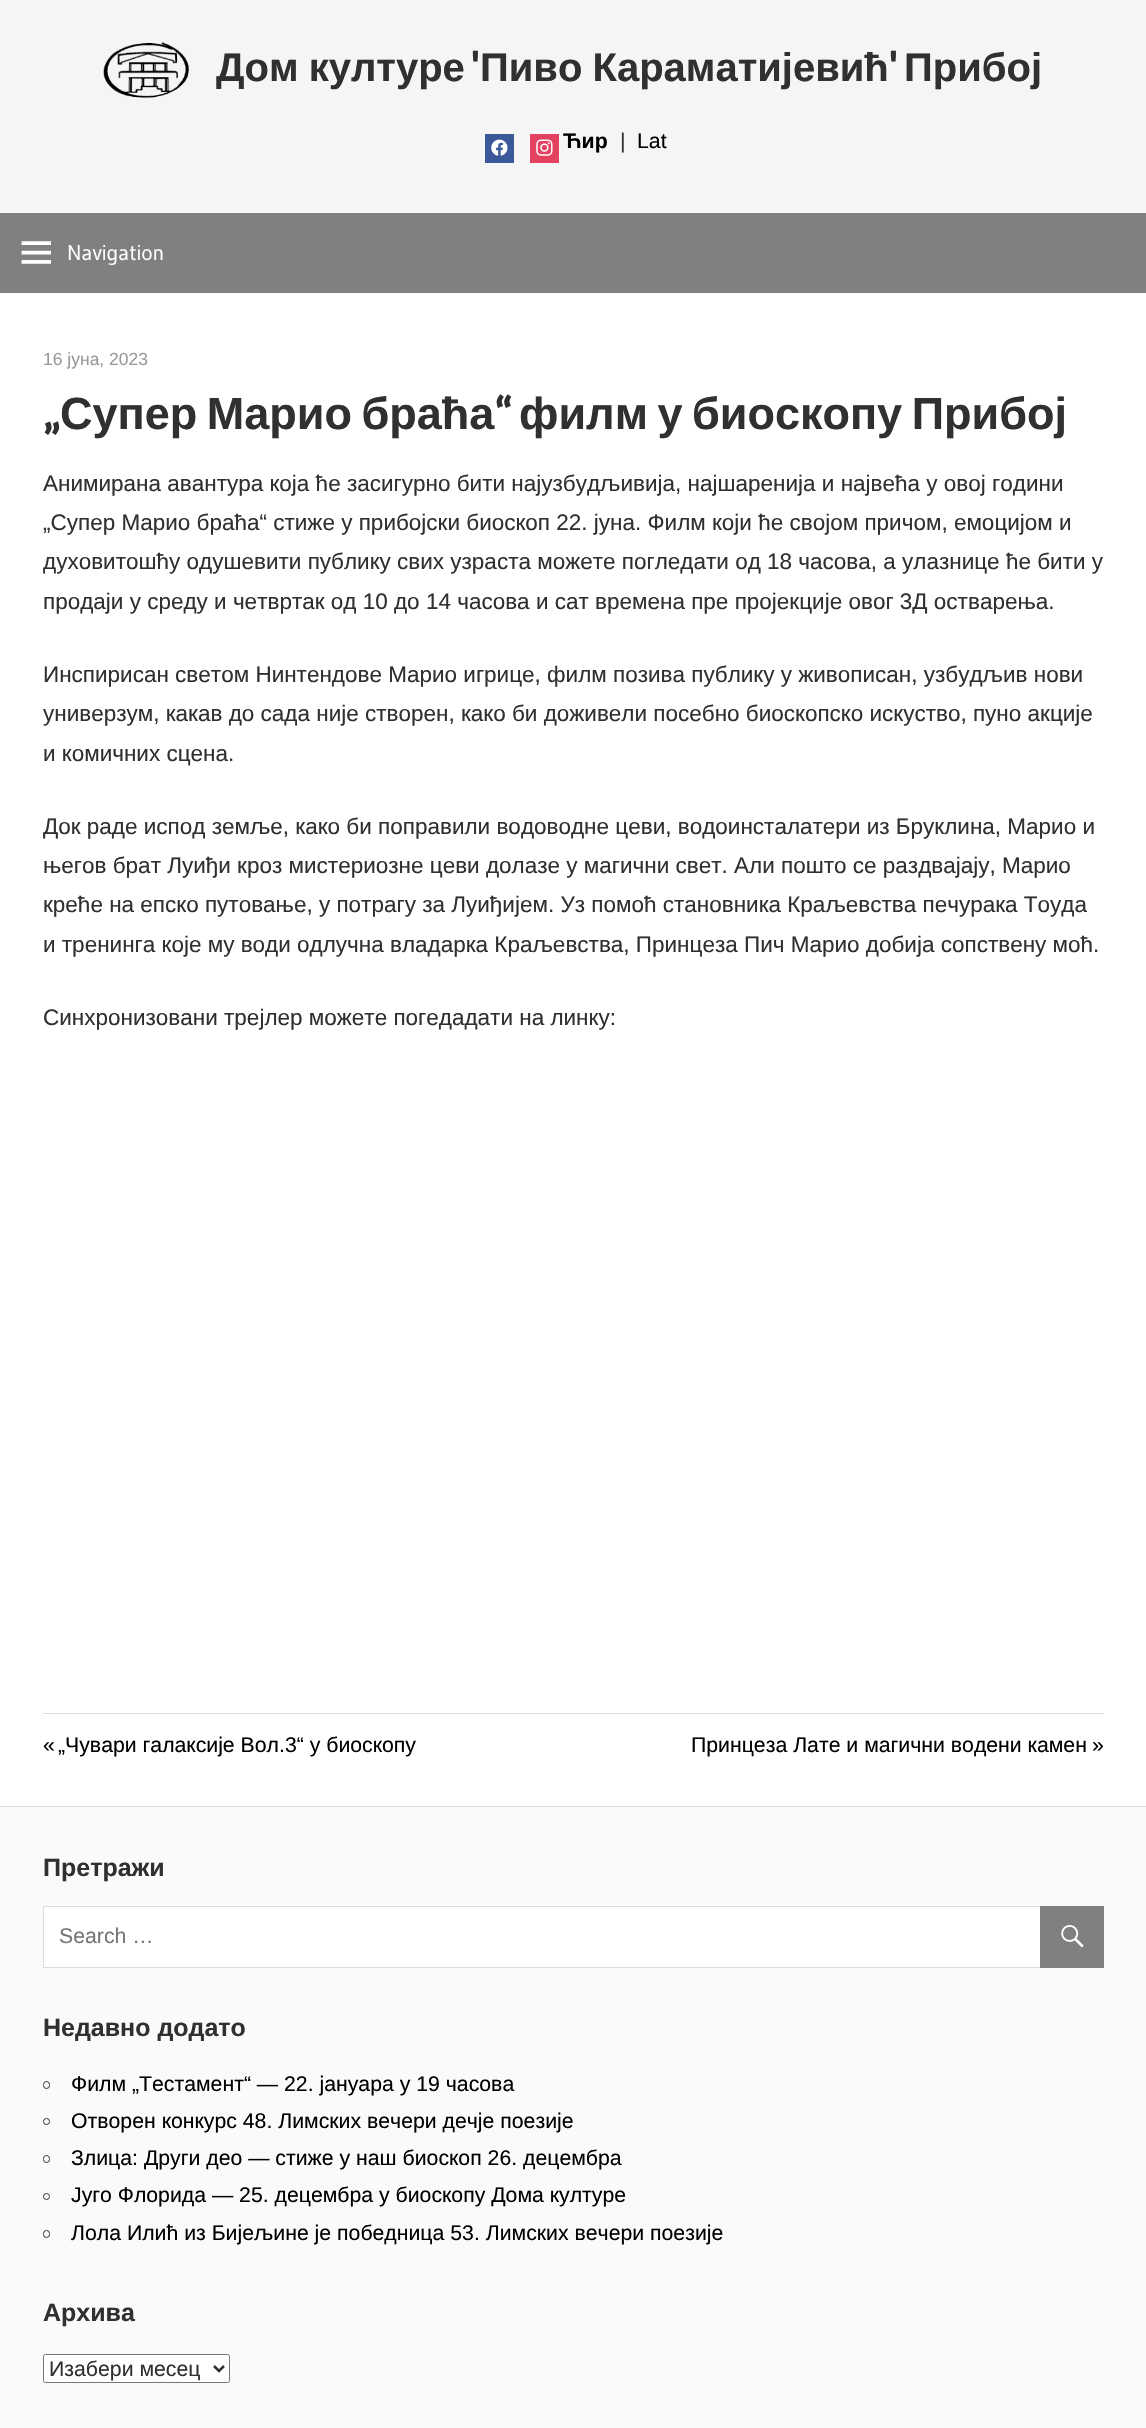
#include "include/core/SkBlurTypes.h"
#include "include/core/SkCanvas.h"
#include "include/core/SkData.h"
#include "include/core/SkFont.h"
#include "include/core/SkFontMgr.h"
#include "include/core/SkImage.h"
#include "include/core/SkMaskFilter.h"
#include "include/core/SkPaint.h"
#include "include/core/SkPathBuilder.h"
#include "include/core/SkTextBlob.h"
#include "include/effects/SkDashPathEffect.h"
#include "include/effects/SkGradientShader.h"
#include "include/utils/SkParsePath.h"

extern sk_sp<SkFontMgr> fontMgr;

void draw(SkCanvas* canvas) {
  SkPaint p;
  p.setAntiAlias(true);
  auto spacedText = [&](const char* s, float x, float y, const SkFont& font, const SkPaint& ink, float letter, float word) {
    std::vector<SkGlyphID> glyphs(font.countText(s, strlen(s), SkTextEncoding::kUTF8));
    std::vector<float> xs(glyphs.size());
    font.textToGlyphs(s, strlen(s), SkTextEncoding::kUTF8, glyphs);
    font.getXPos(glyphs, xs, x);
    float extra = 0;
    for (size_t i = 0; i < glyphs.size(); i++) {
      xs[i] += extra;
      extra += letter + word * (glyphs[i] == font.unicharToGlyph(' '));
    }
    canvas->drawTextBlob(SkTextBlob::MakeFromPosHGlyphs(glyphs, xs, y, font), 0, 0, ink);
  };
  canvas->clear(SK_ColorWHITE);
  p.setColor(SkColorSetRGB(245, 245, 245));
  canvas->drawRect(SkRect::MakeLTRB(0, 0, 1146, 213), p);
  canvas->drawImageRect(SkImages::DeferredFromEncodedData(SkData::MakeFromFileName("images/1.png")), SkRect::MakeLTRB(103, 42, 189, 98), SkSamplingOptions());
  p.setColor(SkColorSetRGB(59, 89, 152));
  canvas->drawRect(SkRect::MakeLTRB(485, 134, 514, 163), p);
  canvas->drawImageRect(SkImages::DeferredFromEncodedData(SkData::MakeFromFileName("images/2.png")), SkRect::MakeLTRB(491, 139, 508, 156), SkSamplingOptions());
  p.setColor(SkColorSetRGB(228, 64, 95));
  canvas->drawRect(SkRect::MakeLTRB(530, 134, 559, 163), p);
  canvas->drawImageRect(SkImages::DeferredFromEncodedData(SkData::MakeFromFileName("images/3.png")), SkRect::MakeLTRB(536, 139, 553, 156), SkSamplingOptions());
  p.setColor(SkColorSetRGB(128, 128, 128));
  canvas->drawRect(SkRect::MakeLTRB(0, 213, 1146, 293), p);
  canvas->drawImageRect(SkImages::DeferredFromEncodedData(SkData::MakeFromFileName("images/4.png")), SkRect::MakeLTRB(21, 241, 51, 264), SkSamplingOptions());
  p.setColor(SkColorSetRGB(221, 221, 221));
  canvas->drawRect(SkRect::MakeLTRB(43, 1713, 1104, 1714), p);
  p.setColor(SkColorSetRGB(250, 250, 250));
  canvas->drawRect(SkRect::MakeLTRB(0, 1807, 1146, 2428), p);
  p.setColor(SkColorSetRGB(221, 221, 221));
  canvas->drawRect(SkRect::MakeLTRB(0, 1806, 1146, 1807), p);
  p.setColor(SK_ColorWHITE);
  canvas->drawRect(SkRect::MakeLTRB(44, 1907, 1040, 1967), p);
  p.setStyle(SkPaint::kStroke_Style);
  p.setStrokeWidth(1);
  p.setColor(SkColorSetRGB(221, 221, 221));
  canvas->drawRect(SkRect::MakeLTRB(43.5f, 1906.5f, 1103.5f, 1967.5f), p);
  p.setStyle(SkPaint::kFill_Style);
  p.setColor(SkColorSetRGB(128, 128, 128));
  canvas->drawRect(SkRect::MakeLTRB(1040, 1906, 1104, 1968), p);
  canvas->drawImageRect(SkImages::DeferredFromEncodedData(SkData::MakeFromFileName("images/5.png")), SkRect::MakeLTRB(1061, 1925, 1084, 1948), SkSamplingOptions());
  p.setStyle(SkPaint::kStroke_Style);
  p.setColor(SkColorSetRGB(48, 48, 48));
  canvas->drawRoundRect(SkRect::MakeLTRB(43.5f, 2081.5f, 49.5f, 2088.5f), 3, 3, p);
  canvas->drawCircle(46.5f, 2121.5f, 3, p);
  canvas->drawRoundRect(SkRect::MakeLTRB(43.5f, 2155.5f, 49.5f, 2162.5f), 3, 3, p);
  canvas->drawCircle(46.5f, 2196.5f, 3, p);
  canvas->drawRoundRect(SkRect::MakeLTRB(43.5f, 2230.5f, 49.5f, 2237.5f), 3, 3, p);
  p.setStyle(SkPaint::kFill_Style);
  p.setColor(SK_ColorWHITE);
  canvas->drawRoundRect(SkRect::MakeLTRB(43.5f, 2354.5f, 229.5f, 2382.5f), 2, 2, p);
  p.setStyle(SkPaint::kStroke_Style);
  p.setColor(SkColorSetRGB(118, 118, 118));
  canvas->drawRoundRect(SkRect::MakeLTRB(43.5f, 2354.5f, 229.5f, 2382.5f), 2, 2, p);
  p.setStrokeWidth(2.5f);
  p.setColor(SkColorSetRGB(48, 48, 48));
  canvas->drawPath(SkPathBuilder().moveTo(214, 2366).lineTo(219, 2371).lineTo(224, 2366).detach(), p);
  SkFont font1(fontMgr->matchFamilyStyle("Liberation Sans", SkFontStyle::Bold()), 40);
  font1.setSubpixel(true);
  p.setStyle(SkPaint::kFill_Style);
  spacedText("Дом културе", 216, 81, font1, p, 0, -1);
  SkFont font2(fontMgr->matchFamilyStyle("Magra", SkFontStyle::Bold()), 40);
  font2.setSubpixel(true);
  canvas->drawString("'", 471, 81, font2, p);
  spacedText("Пиво Караматијевић", 480, 81, font1, p, 0, -1);
  canvas->drawString("'", 889, 81, font2, p);
  canvas->drawString("Прибој", 904, 81, font1, p);
  SkFont font3(fontMgr->matchFamilyStyle("Liberation Sans", SkFontStyle::Bold()), 21.25f);
  font3.setSubpixel(true);
  p.setColor(SK_ColorBLACK);
  canvas->drawString("Ћир", 563, 148, font3, p);
  SkFont font4(fontMgr->matchFamilyStyle("Liberation Sans", SkFontStyle::Normal()), 21.25f);
  font4.setSubpixel(true);
  p.setColor(SkColorSetRGB(48, 48, 48));
  canvas->drawString("|", 620, 148, font4, p);
  p.setColor(SK_ColorBLACK);
  canvas->drawString("Lat", 637, 148, font4, p);
  SkFont font5(fontMgr->matchFamilyStyle("Gudea", SkFontStyle::Normal()), 21.25f);
  font5.setSubpixel(true);
  p.setColor(SK_ColorWHITE);
  canvas->drawString("Navigation", 67, 260, font5, p);
  SkFont font6(fontMgr->matchFamilyStyle("Liberation Sans", SkFontStyle::Normal()), 17.5f);
  font6.setSubpixel(true);
  p.setColor(SkColorSetRGB(153, 153, 153));
  canvas->drawString("16 јуна, 2023", 43, 365, font6, p);
  SkFont font7(fontMgr->matchFamilyStyle("Magra", SkFontStyle::Bold()), 45);
  font7.setSubpixel(true);
  p.setColor(SkColorSetRGB(48, 48, 48));
  canvas->drawString("„", 43, 429, font7, p);
  SkFont font8(fontMgr->matchFamilyStyle("Liberation Sans", SkFontStyle::Bold()), 45);
  font8.setSubpixel(true);
  spacedText("Супер Марио браћа", 60, 429, font8, p, 0, -3);
  canvas->drawString("“", 495, 429, font7, p);
  spacedText("филм у биоскопу Прибој", 519, 429, font8, p, 0, -3);
  SkFont font9(fontMgr->matchFamilyStyle("Liberation Sans", SkFontStyle::Normal()), 22.5f);
  font9.setSubpixel(true);
  canvas->drawString("Анимирана авантура која ће засигурно бити најузбудљивија, најшаренија и највећа у овој години", 43, 491, font9, p);
  canvas->drawString("„Супер Марио браћа“ стиже у прибојски биоскоп 22. јуна. Филм који ће својом причом, емоцијом и", 43, 530, font9, p);
  canvas->drawString("духовитошћу одушевити публику свих узраста можете погледати од 18 часова, а улазнице ће бити у", 43, 569, font9, p);
  canvas->drawString("продаји у среду и четвртак од 10 до 14 часова и сат времена пре пројекције овог 3Д остварења.", 43, 609, font9, p);
  canvas->drawString("Инспирисан светом Нинтендове Марио игрице, филм позива публику у живописан, узбудљив нови", 43, 682, font9, p);
  canvas->drawString("универзум, какав до сада није створен, како би доживели посебно биоскопско искуство, пуно акције", 43, 721, font9, p);
  canvas->drawString("и комичних сцена.", 43, 761, font9, p);
  canvas->drawString("Док раде испод земље, како би поправили водоводне цеви, водоинсталатери из Бруклина, Марио и", 43, 834, font9, p);
  canvas->drawString("његов брат Луиђи кроз мистериозне цеви долазе у магични свет. Али пошто се раздвајају, Марио", 43, 873, font9, p);
  canvas->drawString("креће на епско путовање, у потрагу за Луиђијем. Уз помоћ становника Краљевства печурака Тоуда", 43, 912, font9, p);
  canvas->drawString("и тренинга које му води одлучна владарка Краљевства, Принцеза Пич Марио добија сопствену моћ.", 43, 952, font9, p);
  canvas->drawString("Синхронизовани трејлер можете погедадати на линку:", 43, 1025, font9, p);
  p.setColor(SK_ColorBLACK);
  canvas->drawString("«", 43, 1752, font4, p);
  canvas->drawString("„Чувари галаксије Вол.3“ у биоскопу", 58, 1752, font4, p);
  canvas->drawString("Принцеза Лате и магични водени камен", 691, 1752, font4, p);
  canvas->drawString("»", 1092, 1752, font4, p);
  SkFont font10(fontMgr->matchFamilyStyle("Liberation Sans", SkFontStyle::Bold()), 25);
  font10.setSubpixel(true);
  p.setColor(SkColorSetRGB(48, 48, 48));
  canvas->drawString("Претражи", 43, 1876, font10, p);
  p.setColor(SkColorSetRGB(117, 117, 117));
  canvas->drawString("Search …", 59, 1943, font4, p);
  p.setColor(SkColorSetRGB(48, 48, 48));
  canvas->drawString("Недавно додато", 43, 2036, font10, p);
  p.setColor(SK_ColorBLACK);
  canvas->drawString("Филм „Тестамент“ — 22. јануара у 19 часова", 71, 2091, font4, p);
  canvas->drawString("Отворен конкурс 48. Лимских вечери дечје поезије", 71, 2128, font4, p);
  canvas->drawString("Злица: Други део — стиже у наш биоскоп 26. децембра", 71, 2165, font4, p);
  canvas->drawString("Југо Флорида — 25. децембра у биоскопу Дома културе", 71, 2202, font4, p);
  canvas->drawString("Лола Илић из Бијељине је победница 53. Лимских вечери поезије", 71, 2240, font4, p);
  p.setColor(SkColorSetRGB(48, 48, 48));
  canvas->drawString("Архива", 43, 2321, font10, p);
  canvas->drawString("Изабери месец", 49, 2376, font4, p);
}
